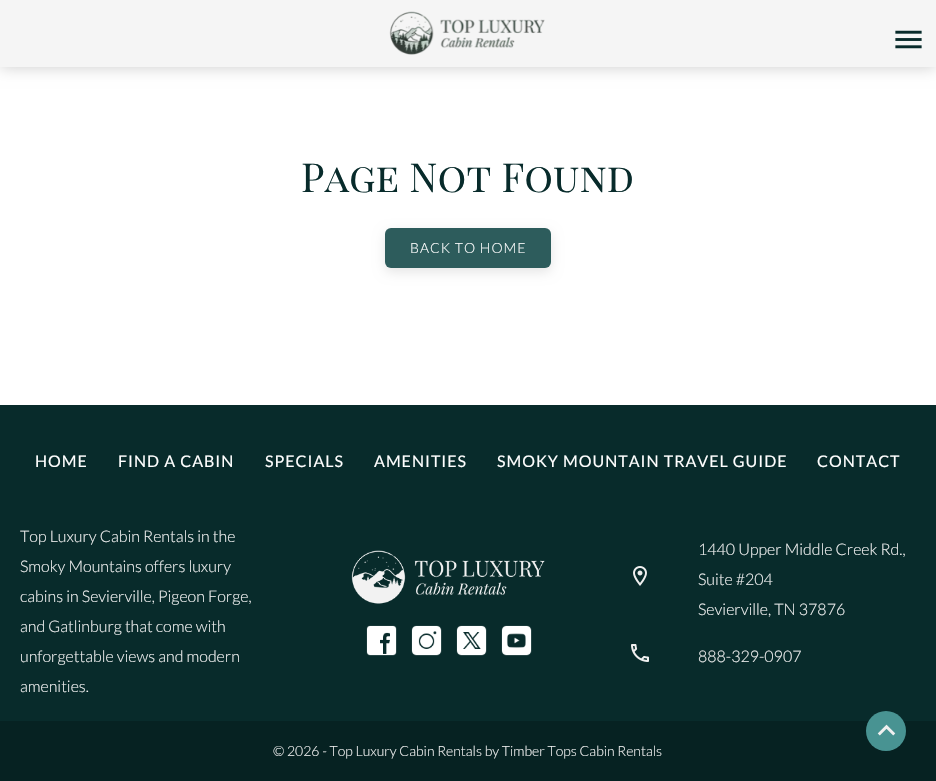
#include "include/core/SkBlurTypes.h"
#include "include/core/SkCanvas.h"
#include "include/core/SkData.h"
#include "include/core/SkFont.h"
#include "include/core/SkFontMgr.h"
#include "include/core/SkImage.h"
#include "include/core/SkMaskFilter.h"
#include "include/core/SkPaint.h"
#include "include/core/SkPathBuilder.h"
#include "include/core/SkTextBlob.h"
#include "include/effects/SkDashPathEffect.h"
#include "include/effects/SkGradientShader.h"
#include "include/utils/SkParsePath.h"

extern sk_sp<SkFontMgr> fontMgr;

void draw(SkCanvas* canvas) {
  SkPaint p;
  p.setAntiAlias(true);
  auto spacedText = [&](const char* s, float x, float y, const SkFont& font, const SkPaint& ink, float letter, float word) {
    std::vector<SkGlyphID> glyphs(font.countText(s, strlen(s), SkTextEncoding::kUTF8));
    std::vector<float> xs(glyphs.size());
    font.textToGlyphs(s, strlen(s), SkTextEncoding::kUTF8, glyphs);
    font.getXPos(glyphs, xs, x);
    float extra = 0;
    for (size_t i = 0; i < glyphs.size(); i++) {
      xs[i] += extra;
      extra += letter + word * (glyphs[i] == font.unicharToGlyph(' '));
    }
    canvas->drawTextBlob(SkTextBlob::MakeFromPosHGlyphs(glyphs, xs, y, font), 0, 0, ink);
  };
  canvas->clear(SK_ColorWHITE);
  p.setColor(SkColorSetARGB(51, 0, 0, 0));
  p.setMaskFilter(SkMaskFilter::MakeBlur(kNormal_SkBlurStyle, 7.5f));
  canvas->drawRect(SkRect::MakeLTRB(0, 0, 936, 67), p);
  p.setMaskFilter(nullptr);
  p.setColor(SkColorSetRGB(245, 245, 245));
  canvas->drawRect(SkRect::MakeLTRB(0, 0, 936, 67), p);
  canvas->drawImageRect(SkImages::DeferredFromEncodedData(SkData::MakeFromFileName("images/1.png")), SkRect::MakeLTRB(389, 11, 545, 55), SkSamplingOptions());
  canvas->drawImageRect(SkImages::DeferredFromEncodedData(SkData::MakeFromFileName("images/2.png")), SkRect::MakeLTRB(895, 30, 922, 49), SkSamplingOptions());
  p.setColor(SkColorSetARGB(26, 0, 0, 0));
  p.setMaskFilter(SkMaskFilter::MakeBlur(kNormal_SkBlurStyle, 6));
  canvas->drawRoundRect(SkRect::MakeLTRB(385, 232, 551, 272), 6, 6, p);
  p.setMaskFilter(nullptr);
  p.setColor(SkColorSetRGB(45, 92, 92));
  canvas->drawRoundRect(SkRect::MakeLTRB(385, 228, 551, 268), 6, 6, p);
  p.setColor(SkColorSetRGB(8, 43, 43));
  canvas->drawRect(SkRect::MakeLTRB(0, 405, 936, 721), p);
  canvas->drawImageRect(SkImages::DeferredFromEncodedData(SkData::MakeFromFileName("images/3.png")), SkRect::MakeLTRB(351, 550, 545, 604), SkSamplingOptions());
  canvas->drawImageRect(SkImages::DeferredFromEncodedData(SkData::MakeFromFileName("images/4.png")), SkRect::MakeLTRB(366, 625, 397, 656), SkSamplingOptions());
  canvas->drawImageRect(SkImages::DeferredFromEncodedData(SkData::MakeFromFileName("images/5.png")), SkRect::MakeLTRB(411, 625, 442, 656), SkSamplingOptions());
  canvas->drawImageRect(SkImages::DeferredFromEncodedData(SkData::MakeFromFileName("images/6.png")), SkRect::MakeLTRB(456, 625, 487, 656), SkSamplingOptions());
  canvas->drawImageRect(SkImages::DeferredFromEncodedData(SkData::MakeFromFileName("images/7.png")), SkRect::MakeLTRB(501, 625, 532, 656), SkSamplingOptions());
  canvas->drawImageRect(SkImages::DeferredFromEncodedData(SkData::MakeFromFileName("images/8.png")), SkRect::MakeLTRB(633, 566, 647, 586), SkSamplingOptions());
  canvas->drawImageRect(SkImages::DeferredFromEncodedData(SkData::MakeFromFileName("images/9.png")), SkRect::MakeLTRB(631, 644, 649, 662), SkSamplingOptions());
  p.setColor(SkColorSetRGB(6, 34, 34));
  canvas->drawRect(SkRect::MakeLTRB(0, 721, 936, 781), p);
  p.setColor(SkColorSetRGB(72, 147, 146));
  canvas->drawCircle(886, 731, 20, p);
  canvas->drawImageRect(SkImages::DeferredFromEncodedData(SkData::MakeFromFileName("images/10.png")), SkRect::MakeLTRB(877, 724, 896, 736), SkSamplingOptions());
  SkFont font1(fontMgr->matchFamilyStyle("Playfair Display SC", SkFontStyle::Normal()), 40);
  font1.setSubpixel(true);
  p.setColor(SkColorSetRGB(8, 43, 43));
  canvas->drawString("Page Not Found", 301, 192, font1, p);
  SkFont font2(fontMgr->matchFamilyStyle("Lato", SkFontStyle(300, SkFontStyle::kNormal_Width, SkFontStyle::kUpright_Slant)), 14);
  font2.setSubpixel(true);
  p.setColor(SK_ColorWHITE);
  spacedText("BACK TO HOME", 410, 253, font2, p, 1, 0);
  SkFont font3(fontMgr->matchFamilyStyle("Lato", SkFontStyle::Normal()), 16);
  font3.setSubpixel(true);
  spacedText("HOME", 35, 467, font3, p, 1, 0);
  spacedText("FIND A CABIN", 118, 467, font3, p, 1, 0);
  spacedText("SPECIALS", 265, 467, font3, p, 1, 0);
  spacedText("AMENITIES", 374, 467, font3, p, 1, 0);
  spacedText("SMOKY MOUNTAIN TRAVEL GUIDE", 497, 467, font3, p, 1, 0);
  spacedText("CONTACT", 817, 467, font3, p, 1, 0);
  SkFont font4(fontMgr->matchFamilyStyle("Lato", SkFontStyle(300, SkFontStyle::kNormal_Width, SkFontStyle::kUpright_Slant)), 16);
  font4.setSubpixel(true);
  p.setColor(SkColorSetRGB(240, 240, 240));
  canvas->drawString("Top Luxury Cabin Rentals in the", 20, 542, font4, p);
  canvas->drawString("Smoky Mountains offers luxury", 20, 572, font4, p);
  canvas->drawString("cabins in Sevierville, Pigeon Forge,", 20, 602, font4, p);
  canvas->drawString("and Gatlinburg that come with", 20, 632, font4, p);
  canvas->drawString("unforgettable views and modern", 20, 662, font4, p);
  canvas->drawString("amenities.", 20, 692, font4, p);
  canvas->drawString("1440 Upper Middle Creek Rd.,", 698, 555, font4, p);
  canvas->drawString("Suite #204", 698, 585, font4, p);
  canvas->drawString("Sevierville, TN 37876", 698, 615, font4, p);
  canvas->drawString("888-329-0907", 698, 662, font4, p);
  canvas->drawString("© 2026 - Top Luxury Cabin Rentals by Timber Tops Cabin Rentals", 273, 756, font2, p);
}
